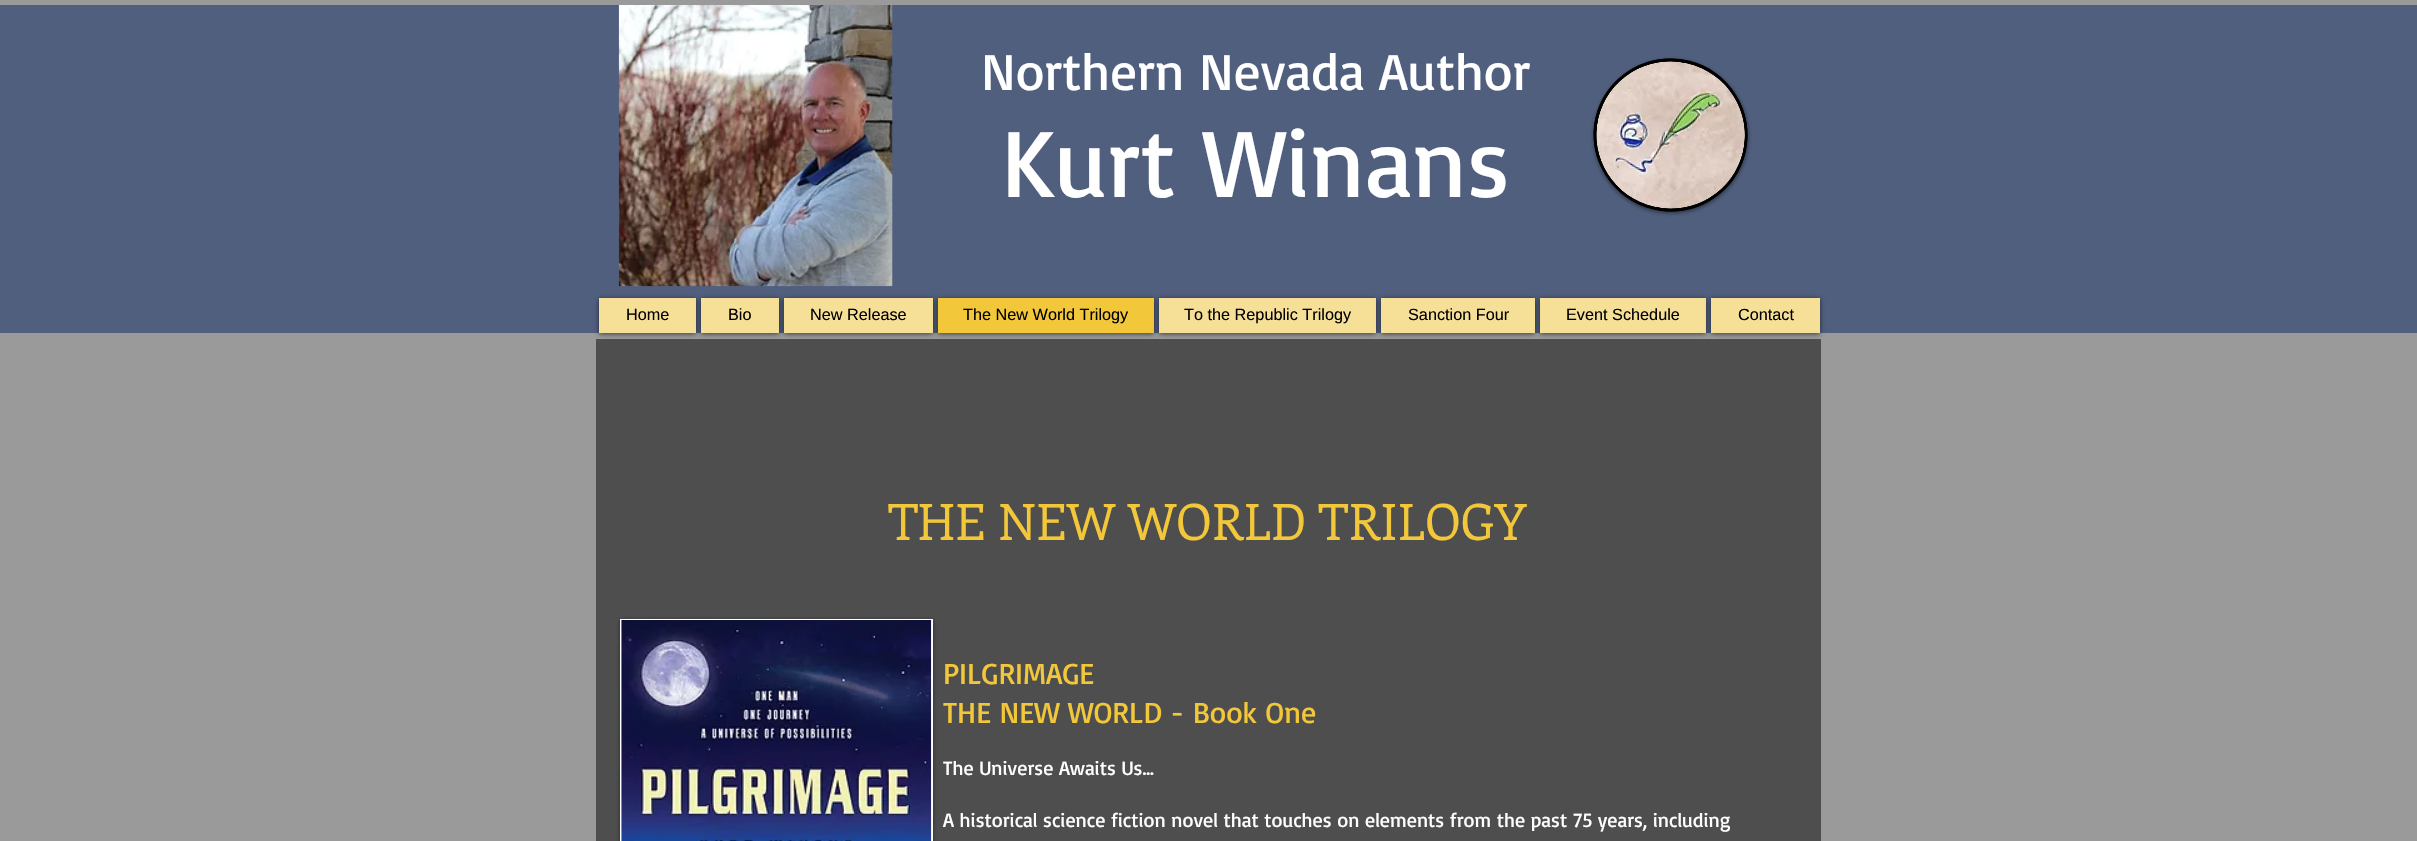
#include "include/core/SkBlurTypes.h"
#include "include/core/SkCanvas.h"
#include "include/core/SkData.h"
#include "include/core/SkFont.h"
#include "include/core/SkFontMgr.h"
#include "include/core/SkImage.h"
#include "include/core/SkMaskFilter.h"
#include "include/core/SkPaint.h"
#include "include/core/SkPathBuilder.h"
#include "include/core/SkTextBlob.h"
#include "include/effects/SkDashPathEffect.h"
#include "include/effects/SkGradientShader.h"
#include "include/utils/SkParsePath.h"

extern sk_sp<SkFontMgr> fontMgr;

void draw(SkCanvas* canvas) {
  SkPaint p;
  p.setAntiAlias(true);
  canvas->clear(SkColorSetRGB(154, 154, 154));
  p.setColor(SkColorSetRGB(81, 95, 126));
  canvas->drawRect(SkRect::MakeLTRB(0, 5, 2417, 333), p);
  canvas->drawImageRect(SkImages::DeferredFromEncodedData(SkData::MakeFromFileName("images/1.png")), SkRect::MakeLTRB(618, 5, 893, 287), SkSamplingOptions());
  p.setColor(SkColorSetARGB(128, 0, 0, 0));
  p.setMaskFilter(SkMaskFilter::MakeBlur(kNormal_SkBlurStyle, 2));
  canvas->drawRoundRect(SkRect::MakeLTRB(1594, 60, 1748, 213), 76.5f, 76.5f, p);
  p.setMaskFilter(nullptr);
  p.setColor(SK_ColorBLACK);
  canvas->drawPath(SkPathBuilder().moveTo(1681, 59).cubicTo(1723, 65, 1752, 103, 1747, 145).cubicTo(1741, 187, 1703, 216, 1661, 211).cubicTo(1619, 205, 1589, 167, 1594, 125).cubicTo(1600, 83, 1638, 54, 1681, 59).close().detach(), p);
  p.setStyle(SkPaint::kStroke_Style);
  p.setStrokeWidth(2.5f);
  canvas->drawPath(SkPathBuilder().moveTo(1680.5f, 60.5f).cubicTo(1722, 66, 1751, 104, 1745.5f, 145).cubicTo(1740, 186, 1702.5f, 215, 1661, 209.5f).cubicTo(1619.5f, 204, 1590.5f, 166, 1595.5f, 125).cubicTo(1601, 84, 1639, 55, 1680.5f, 60.5f).close().detach(), p);
  canvas->drawImageRect(SkImages::DeferredFromEncodedData(SkData::MakeFromFileName("images/2.png")), SkRect::MakeLTRB(1596, 61, 1745, 209), SkSamplingOptions());
  p.setStyle(SkPaint::kFill_Style);
  p.setColor(SkColorSetARGB(153, 0, 0, 0));
  p.setMaskFilter(SkMaskFilter::MakeBlur(kNormal_SkBlurStyle, 2.5f));
  canvas->drawRect(SkRect::MakeLTRB(599, 299, 696, 334), p);
  p.setMaskFilter(nullptr);
  p.setColor(SkColorSetRGB(246, 224, 152));
  canvas->drawRect(SkRect::MakeLTRB(599, 298, 696, 333), p);
  p.setColor(SkColorSetARGB(153, 0, 0, 0));
  p.setMaskFilter(SkMaskFilter::MakeBlur(kNormal_SkBlurStyle, 2.5f));
  canvas->drawRect(SkRect::MakeLTRB(701, 299, 779, 334), p);
  p.setMaskFilter(nullptr);
  p.setColor(SkColorSetRGB(246, 224, 152));
  canvas->drawRect(SkRect::MakeLTRB(701, 298, 779, 333), p);
  p.setColor(SkColorSetARGB(153, 0, 0, 0));
  p.setMaskFilter(SkMaskFilter::MakeBlur(kNormal_SkBlurStyle, 2.5f));
  canvas->drawRect(SkRect::MakeLTRB(784, 299, 933, 334), p);
  p.setMaskFilter(nullptr);
  p.setColor(SkColorSetRGB(246, 224, 152));
  canvas->drawRect(SkRect::MakeLTRB(784, 298, 933, 333), p);
  p.setColor(SkColorSetARGB(153, 0, 0, 0));
  p.setMaskFilter(SkMaskFilter::MakeBlur(kNormal_SkBlurStyle, 2.5f));
  canvas->drawRect(SkRect::MakeLTRB(938, 299, 1154, 334), p);
  p.setMaskFilter(nullptr);
  p.setColor(SkColorSetRGB(242, 199, 58));
  canvas->drawRect(SkRect::MakeLTRB(938, 298, 1154, 333), p);
  p.setColor(SkColorSetARGB(153, 0, 0, 0));
  p.setMaskFilter(SkMaskFilter::MakeBlur(kNormal_SkBlurStyle, 2.5f));
  canvas->drawRect(SkRect::MakeLTRB(1159, 299, 1376, 334), p);
  p.setMaskFilter(nullptr);
  p.setColor(SkColorSetRGB(246, 224, 152));
  canvas->drawRect(SkRect::MakeLTRB(1159, 298, 1376, 333), p);
  p.setColor(SkColorSetARGB(153, 0, 0, 0));
  p.setMaskFilter(SkMaskFilter::MakeBlur(kNormal_SkBlurStyle, 2.5f));
  canvas->drawRect(SkRect::MakeLTRB(1381, 299, 1535, 334), p);
  p.setMaskFilter(nullptr);
  p.setColor(SkColorSetRGB(246, 224, 152));
  canvas->drawRect(SkRect::MakeLTRB(1381, 298, 1535, 333), p);
  p.setColor(SkColorSetARGB(153, 0, 0, 0));
  p.setMaskFilter(SkMaskFilter::MakeBlur(kNormal_SkBlurStyle, 2.5f));
  canvas->drawRect(SkRect::MakeLTRB(1540, 299, 1706, 334), p);
  p.setMaskFilter(nullptr);
  p.setColor(SkColorSetRGB(246, 224, 152));
  canvas->drawRect(SkRect::MakeLTRB(1540, 298, 1706, 333), p);
  p.setColor(SkColorSetARGB(153, 0, 0, 0));
  p.setMaskFilter(SkMaskFilter::MakeBlur(kNormal_SkBlurStyle, 2.5f));
  canvas->drawRect(SkRect::MakeLTRB(1711, 299, 1820, 334), p);
  p.setMaskFilter(nullptr);
  p.setColor(SkColorSetRGB(246, 224, 152));
  canvas->drawRect(SkRect::MakeLTRB(1711, 298, 1820, 333), p);
  p.setColor(SkColorSetRGB(78, 78, 78));
  canvas->drawRect(SkRect::MakeLTRB(596, 339, 1821, 841), p);
  p.setColor(SkColorSetARGB(128, 0, 0, 0));
  p.setMaskFilter(SkMaskFilter::MakeBlur(kNormal_SkBlurStyle, 2));
  canvas->drawRect(SkRect::MakeLTRB(620, 620, 933, 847), p);
  p.setMaskFilter(nullptr);
  p.setColor(SK_ColorWHITE);
  canvas->drawRect(SkRect::MakeLTRB(620, 619, 933, 841), p);
  canvas->drawImageRect(SkImages::DeferredFromEncodedData(SkData::MakeFromFileName("images/3.png")), SkRect::MakeLTRB(621, 620, 932, 841), SkSamplingOptions());
  SkFont font1(fontMgr->matchFamilyStyle("Basic", SkFontStyle::Normal()), 52.5f);
  font1.setSubpixel(true);
  canvas->drawString("Northern Nevada Author", 981, 90, font1, p);
  SkFont font2(fontMgr->matchFamilyStyle("Basic", SkFontStyle::Normal()), 97.5f);
  font2.setSubpixel(true);
  canvas->drawString("Kurt Winans", 1001, 197, font2, p);
  SkFont font3(fontMgr->matchFamilyStyle("Liberation Sans", SkFontStyle::Normal()), 16.25f);
  font3.setSubpixel(true);
  p.setColor(SK_ColorBLACK);
  canvas->drawString("Home", 626, 320, font3, p);
  canvas->drawString("Bio", 728, 320, font3, p);
  canvas->drawString("New Release", 810, 320, font3, p);
  canvas->drawString("The New World Trilogy", 963, 320, font3, p);
  canvas->drawString("To the Republic Trilogy", 1184, 320, font3, p);
  canvas->drawString("Sanction Four", 1408, 320, font3, p);
  canvas->drawString("Event Schedule", 1566, 320, font3, p);
  canvas->drawString("Contact", 1738, 320, font3, p);
  SkFont font4(fontMgr->matchFamilyStyle("Enriqueta", SkFontStyle::Normal()), 50);
  font4.setSubpixel(true);
  p.setColor(SkColorSetRGB(242, 199, 58));
  canvas->drawString("THE NEW WORLD TRILOGY", 888, 540, font4, p);
  SkFont font5(fontMgr->matchFamilyStyle("Basic", SkFontStyle::Normal()), 30);
  font5.setSubpixel(true);
  canvas->drawString("PILGRIMAGE", 943, 684, font5, p);
  canvas->drawString("THE NEW WORLD - Book One", 943, 723, font5, p);
  SkFont font6(fontMgr->matchFamilyStyle("Basic", SkFontStyle::Normal()), 20);
  font6.setSubpixel(true);
  p.setColor(SK_ColorWHITE);
  canvas->drawString("The Universe Awaits Us...", 943, 775, font6, p);
  canvas->drawString("A historical science fiction novel that touches on elements from the past 75 years, including", 943, 827, font6, p);
}
